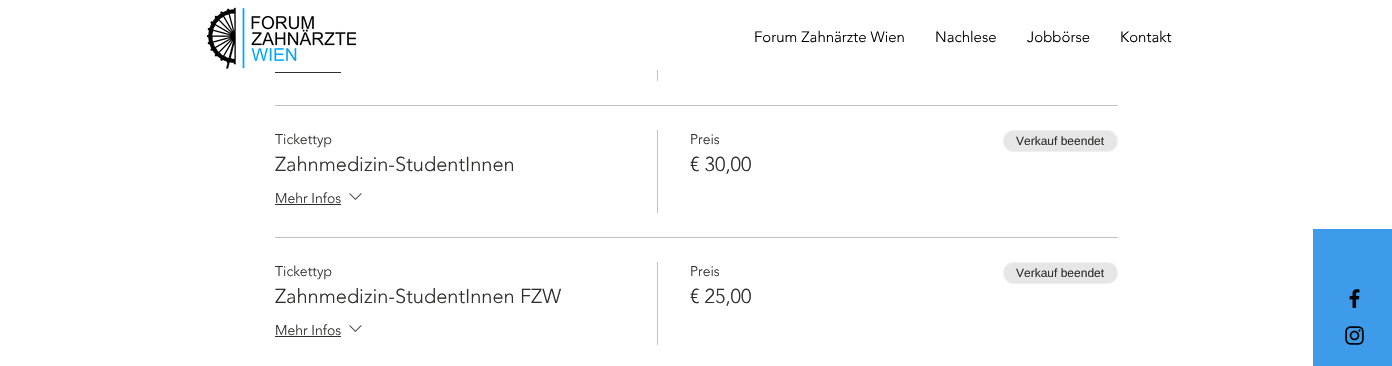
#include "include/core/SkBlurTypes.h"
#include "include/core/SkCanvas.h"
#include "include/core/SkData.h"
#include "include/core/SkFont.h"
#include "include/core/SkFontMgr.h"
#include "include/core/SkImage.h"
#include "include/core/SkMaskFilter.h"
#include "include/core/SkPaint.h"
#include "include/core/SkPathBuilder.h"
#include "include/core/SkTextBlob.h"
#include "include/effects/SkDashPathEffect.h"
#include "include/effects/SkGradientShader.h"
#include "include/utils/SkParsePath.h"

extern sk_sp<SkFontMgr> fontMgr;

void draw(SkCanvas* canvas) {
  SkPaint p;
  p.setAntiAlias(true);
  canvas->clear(SK_ColorWHITE);
  canvas->drawImageRect(SkImages::DeferredFromEncodedData(SkData::MakeFromFileName("images/1.png")), SkRect::MakeLTRB(206, 7, 356, 69), SkSamplingOptions());
  p.setColor(SkColorSetRGB(193, 193, 192));
  canvas->drawRect(SkRect::MakeLTRB(275, 105, 1118, 106), p);
  p.setColor(SkColorSetRGB(47, 47, 46));
  canvas->drawRect(SkRect::MakeLTRB(275, 72, 341, 73), p);
  p.setColor(SkColorSetRGB(193, 193, 192));
  canvas->drawRect(SkRect::MakeLTRB(657, 70, 658, 81), p);
  canvas->drawRect(SkRect::MakeLTRB(275, 237, 1118, 238), p);
  p.setColor(SkColorSetRGB(47, 47, 46));
  canvas->drawRect(SkRect::MakeLTRB(275, 204, 341, 205), p);
  canvas->drawImageRect(SkImages::DeferredFromEncodedData(SkData::MakeFromFileName("images/2.png")), SkRect::MakeLTRB(349, 193, 362, 200), SkSamplingOptions());
  p.setColor(SkColorSetRGB(193, 193, 192));
  canvas->drawRect(SkRect::MakeLTRB(657, 130, 658, 213), p);
  p.setColor(SkColorSetRGB(230, 230, 230));
  canvas->drawRoundRect(SkRect::MakeLTRB(1003, 130, 1118, 152), 11, 11, p);
  p.setStyle(SkPaint::kStroke_Style);
  p.setStrokeWidth(1);
  p.setColor(SkColorSetARGB(102, 255, 255, 255));
  canvas->drawRoundRect(SkRect::MakeLTRB(1003.5f, 130.5f, 1117.5f, 151.5f), 10.5f, 10.5f, p);
  p.setStyle(SkPaint::kFill_Style);
  p.setColor(SkColorSetRGB(47, 47, 46));
  canvas->drawRect(SkRect::MakeLTRB(275, 336, 341, 337), p);
  canvas->drawImageRect(SkImages::DeferredFromEncodedData(SkData::MakeFromFileName("images/2.png")), SkRect::MakeLTRB(349, 325, 362, 332), SkSamplingOptions());
  p.setColor(SkColorSetRGB(193, 193, 192));
  canvas->drawRect(SkRect::MakeLTRB(657, 262, 658, 345), p);
  p.setColor(SkColorSetRGB(230, 230, 230));
  canvas->drawRoundRect(SkRect::MakeLTRB(1003, 262, 1118, 284), 11, 11, p);
  p.setStyle(SkPaint::kStroke_Style);
  p.setColor(SkColorSetARGB(102, 255, 255, 255));
  canvas->drawRoundRect(SkRect::MakeLTRB(1003.5f, 262.5f, 1117.5f, 283.5f), 10.5f, 10.5f, p);
  p.setStyle(SkPaint::kFill_Style);
  p.setColor(SkColorSetRGB(61, 155, 233));
  canvas->drawRect(SkRect::MakeLTRB(1313, 229, 1392, 366), p);
  canvas->drawImageRect(SkImages::DeferredFromEncodedData(SkData::MakeFromFileName("images/3.png")), SkRect::MakeLTRB(1349, 289, 1360, 309), SkSamplingOptions());
  canvas->drawImageRect(SkImages::DeferredFromEncodedData(SkData::MakeFromFileName("images/4.png")), SkRect::MakeLTRB(1345, 326, 1364, 345), SkSamplingOptions());
  SkFont font1(fontMgr->matchFamilyStyle("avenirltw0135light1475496", SkFontStyle(300, SkFontStyle::kNormal_Width, SkFontStyle::kUpright_Slant)), 15);
  font1.setSubpixel(true);
  p.setColor(SK_ColorBLACK);
  canvas->drawString("Forum Zahnärzte Wien", 754, 42, font1, p);
  canvas->drawString("Nachlese", 935, 42, font1, p);
  canvas->drawString("Jobbörse", 1027, 42, font1, p);
  canvas->drawString("Kontakt", 1120, 42, font1, p);
  SkFont font2(fontMgr->matchFamilyStyle("avenirltw0135light1475496", SkFontStyle(300, SkFontStyle::kNormal_Width, SkFontStyle::kUpright_Slant)), 14);
  font2.setSubpixel(true);
  p.setColor(SkColorSetRGB(47, 47, 46));
  canvas->drawString("Tickettyp", 275, 144, font2, p);
  SkFont font3(fontMgr->matchFamilyStyle("avenirltw0135light1475496", SkFontStyle(300, SkFontStyle::kNormal_Width, SkFontStyle::kUpright_Slant)), 20);
  font3.setSubpixel(true);
  canvas->drawString("Zahnmedizin-StudentInnen", 275, 171, font3, p);
  canvas->drawString("Mehr Infos", 275, 203, font2, p);
  canvas->drawString("Preis", 690, 144, font2, p);
  canvas->drawString("€ 30,00", 690, 171, font3, p);
  SkFont font4(fontMgr->matchFamilyStyle("Liberation Sans", SkFontStyle::Normal()), 12);
  font4.setSubpixel(true);
  canvas->drawString("Verkauf beendet", 1016, 145, font4, p);
  canvas->drawString("Tickettyp", 275, 276, font2, p);
  canvas->drawString("Zahnmedizin-StudentInnen FZW", 275, 303, font3, p);
  canvas->drawString("Mehr Infos", 275, 335, font2, p);
  canvas->drawString("Preis", 690, 276, font2, p);
  canvas->drawString("€ 25,00", 690, 303, font3, p);
  canvas->drawString("Verkauf beendet", 1016, 277, font4, p);
}
